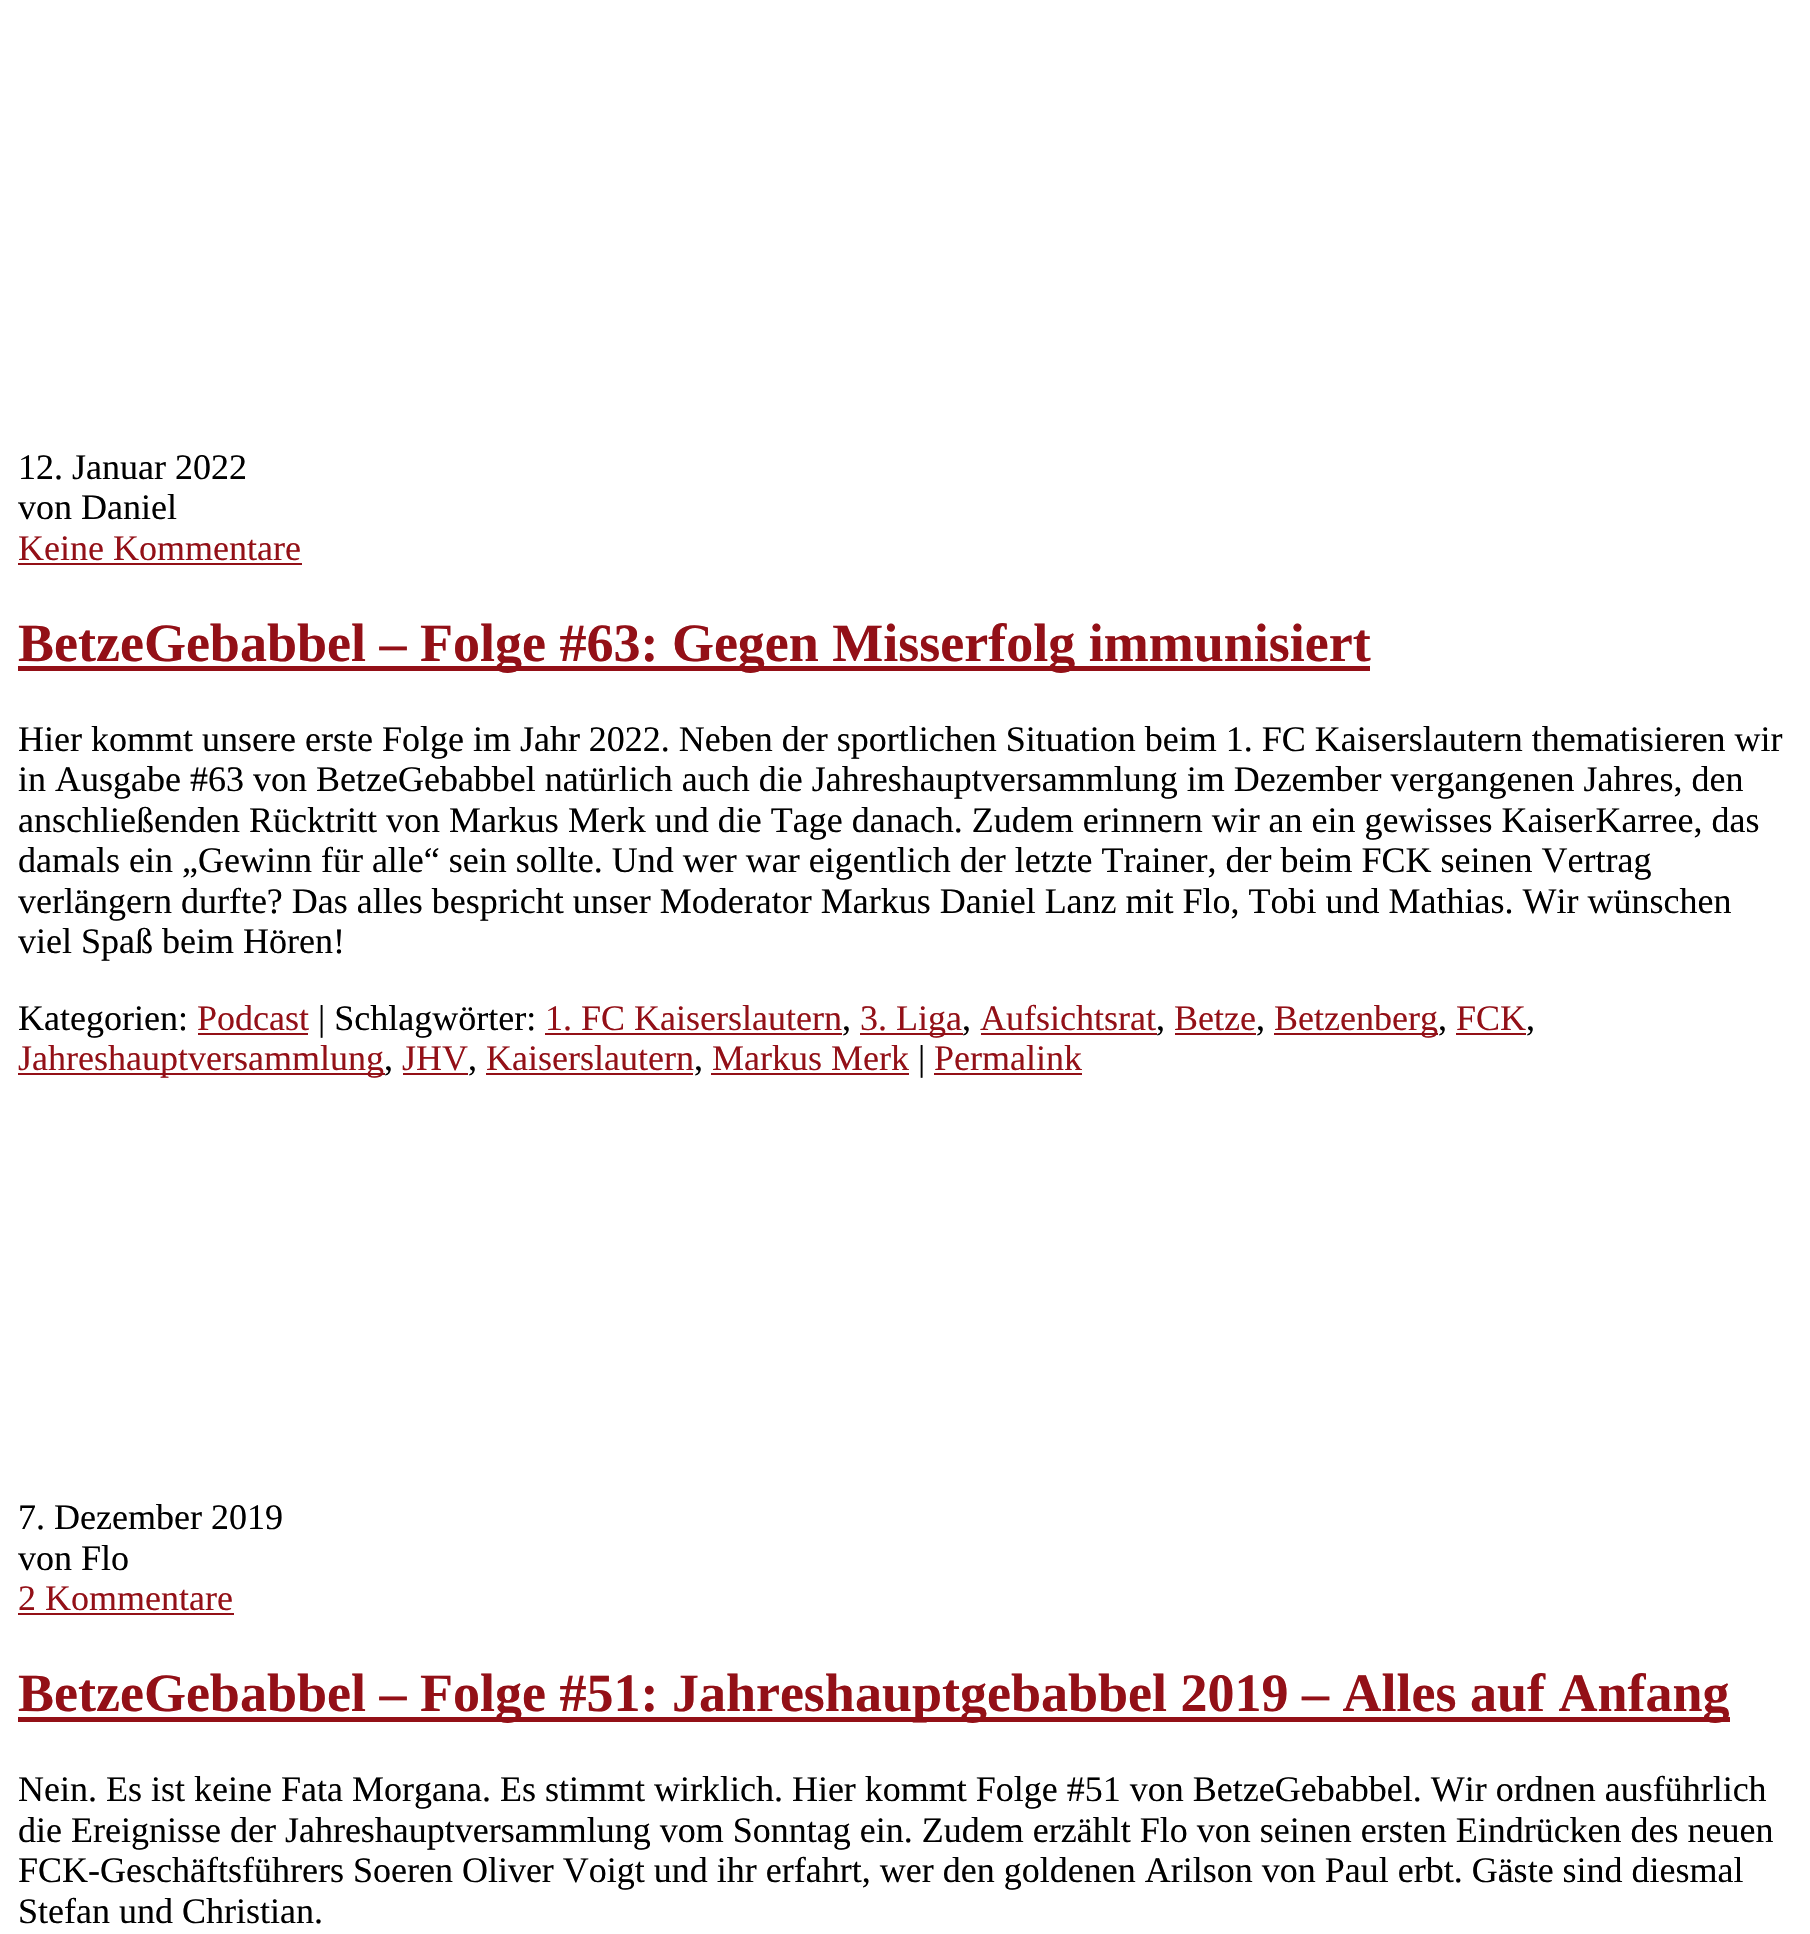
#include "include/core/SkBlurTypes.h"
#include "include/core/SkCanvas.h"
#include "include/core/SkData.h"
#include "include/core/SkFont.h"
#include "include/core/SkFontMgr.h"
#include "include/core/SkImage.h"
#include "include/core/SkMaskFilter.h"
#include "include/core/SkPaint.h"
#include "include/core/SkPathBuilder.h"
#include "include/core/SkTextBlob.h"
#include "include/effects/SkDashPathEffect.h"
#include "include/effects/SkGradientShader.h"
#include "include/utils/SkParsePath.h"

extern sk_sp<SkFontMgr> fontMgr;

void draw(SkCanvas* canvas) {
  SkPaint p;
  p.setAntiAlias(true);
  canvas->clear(SK_ColorWHITE);
  p.setColor(SkColorSetRGB(147, 16, 23));
  canvas->drawRect(SkRect::MakeLTRB(18, 563, 302, 565), p);
  canvas->drawRect(SkRect::MakeLTRB(18, 666, 1370, 671), p);
  canvas->drawRect(SkRect::MakeLTRB(198, 1033, 308, 1035), p);
  canvas->drawRect(SkRect::MakeLTRB(545, 1033, 842, 1035), p);
  canvas->drawRect(SkRect::MakeLTRB(860, 1033, 963, 1035), p);
  canvas->drawRect(SkRect::MakeLTRB(981, 1033, 1157, 1035), p);
  canvas->drawRect(SkRect::MakeLTRB(1175, 1033, 1256, 1035), p);
  canvas->drawRect(SkRect::MakeLTRB(1274, 1033, 1438, 1035), p);
  canvas->drawRect(SkRect::MakeLTRB(1456, 1033, 1526, 1035), p);
  canvas->drawRect(SkRect::MakeLTRB(18, 1073, 385, 1075), p);
  canvas->drawRect(SkRect::MakeLTRB(403, 1073, 468, 1075), p);
  canvas->drawRect(SkRect::MakeLTRB(486, 1073, 693, 1075), p);
  canvas->drawRect(SkRect::MakeLTRB(711, 1073, 909, 1075), p);
  canvas->drawRect(SkRect::MakeLTRB(934, 1073, 1082, 1075), p);
  canvas->drawRect(SkRect::MakeLTRB(18, 1613, 234, 1615), p);
  canvas->drawRect(SkRect::MakeLTRB(18, 1717, 1730, 1722), p);
  SkFont font1(fontMgr->matchFamilyStyle("Liberation Serif", SkFontStyle::Normal()), 36);
  font1.setSubpixel(true);
  p.setColor(SK_ColorBLACK);
  canvas->drawString("12. Januar 2022", 18, 479, font1, p);
  canvas->drawString("von Daniel", 18, 519, font1, p);
  p.setColor(SkColorSetRGB(147, 16, 23));
  canvas->drawString("Keine Kommentare", 18, 560, font1, p);
  SkFont font2(fontMgr->matchFamilyStyle("Liberation Serif", SkFontStyle::Bold()), 54);
  font2.setSubpixel(true);
  canvas->drawString("BetzeGebabbel – Folge #63: Gegen Misserfolg immunisiert", 18, 661, font2, p);
  p.setColor(SK_ColorBLACK);
  canvas->drawString("Hier kommt unsere erste Folge im Jahr 2022. Neben der sportlichen Situation beim 1. FC Kaiserslautern thematisieren wir", 18, 751, font1, p);
  canvas->drawString("in Ausgabe #63 von BetzeGebabbel natürlich auch die Jahreshauptversammlung im Dezember vergangenen Jahres, den", 18, 791, font1, p);
  canvas->drawString("anschließenden Rücktritt von Markus Merk und die Tage danach. Zudem erinnern wir an ein gewisses KaiserKarree, das", 18, 832, font1, p);
  canvas->drawString("damals ein „Gewinn für alle“ sein sollte. Und wer war eigentlich der letzte Trainer, der beim FCK seinen Vertrag", 18, 872, font1, p);
  canvas->drawString("verlängern durfte? Das alles bespricht unser Moderator Markus Daniel Lanz mit Flo, Tobi und Mathias. Wir wünschen", 18, 913, font1, p);
  canvas->drawString("viel Spaß beim Hören!", 18, 953, font1, p);
  canvas->drawString("Kategorien:", 18, 1030, font1, p);
  p.setColor(SkColorSetRGB(147, 16, 23));
  canvas->drawString("Podcast", 197, 1030, font1, p);
  p.setColor(SK_ColorBLACK);
  canvas->drawString("| Schlagwörter:", 318, 1030, font1, p);
  p.setColor(SkColorSetRGB(147, 16, 23));
  canvas->drawString("1. FC Kaiserslautern", 545, 1030, font1, p);
  p.setColor(SK_ColorBLACK);
  canvas->drawString(",", 842, 1030, font1, p);
  p.setColor(SkColorSetRGB(147, 16, 23));
  canvas->drawString("3. Liga", 860, 1030, font1, p);
  p.setColor(SK_ColorBLACK);
  canvas->drawString(",", 962, 1030, font1, p);
  p.setColor(SkColorSetRGB(147, 16, 23));
  canvas->drawString("Aufsichtsrat", 980, 1030, font1, p);
  p.setColor(SK_ColorBLACK);
  canvas->drawString(",", 1156, 1030, font1, p);
  p.setColor(SkColorSetRGB(147, 16, 23));
  canvas->drawString("Betze", 1174, 1030, font1, p);
  p.setColor(SK_ColorBLACK);
  canvas->drawString(",", 1256, 1030, font1, p);
  p.setColor(SkColorSetRGB(147, 16, 23));
  canvas->drawString("Betzenberg", 1274, 1030, font1, p);
  p.setColor(SK_ColorBLACK);
  canvas->drawString(",", 1438, 1030, font1, p);
  p.setColor(SkColorSetRGB(147, 16, 23));
  canvas->drawString("FCK", 1456, 1030, font1, p);
  p.setColor(SK_ColorBLACK);
  canvas->drawString(",", 1526, 1030, font1, p);
  p.setColor(SkColorSetRGB(147, 16, 23));
  canvas->drawString("Jahreshauptversammlung", 18, 1070, font1, p);
  p.setColor(SK_ColorBLACK);
  canvas->drawString(",", 384, 1070, font1, p);
  p.setColor(SkColorSetRGB(147, 16, 23));
  canvas->drawString("JHV", 402, 1070, font1, p);
  p.setColor(SK_ColorBLACK);
  canvas->drawString(",", 468, 1070, font1, p);
  p.setColor(SkColorSetRGB(147, 16, 23));
  canvas->drawString("Kaiserslautern", 486, 1070, font1, p);
  p.setColor(SK_ColorBLACK);
  canvas->drawString(",", 694, 1070, font1, p);
  p.setColor(SkColorSetRGB(147, 16, 23));
  canvas->drawString("Markus Merk", 712, 1070, font1, p);
  p.setColor(SK_ColorBLACK);
  canvas->drawString("|", 918, 1070, font1, p);
  p.setColor(SkColorSetRGB(147, 16, 23));
  canvas->drawString("Permalink", 934, 1070, font1, p);
  p.setColor(SK_ColorBLACK);
  canvas->drawString("7. Dezember 2019", 18, 1529, font1, p);
  canvas->drawString("von Flo", 18, 1570, font1, p);
  p.setColor(SkColorSetRGB(147, 16, 23));
  canvas->drawString("2 Kommentare", 18, 1610, font1, p);
  canvas->drawString("BetzeGebabbel – Folge #51: Jahreshauptgebabbel 2019 – Alles auf Anfang", 18, 1711, font2, p);
  p.setColor(SK_ColorBLACK);
  canvas->drawString("Nein. Es ist keine Fata Morgana. Es stimmt wirklich. Hier kommt Folge #51 von BetzeGebabbel. Wir ordnen ausführlich", 18, 1801, font1, p);
  canvas->drawString("die Ereignisse der Jahreshauptversammlung vom Sonntag ein. Zudem erzählt Flo von seinen ersten Eindrücken des neuen", 18, 1842, font1, p);
  canvas->drawString("FCK-Geschäftsführers Soeren Oliver Voigt und ihr erfahrt, wer den goldenen Arilson von Paul erbt. Gäste sind diesmal", 18, 1882, font1, p);
  canvas->drawString("Stefan und Christian.", 18, 1923, font1, p);
}
